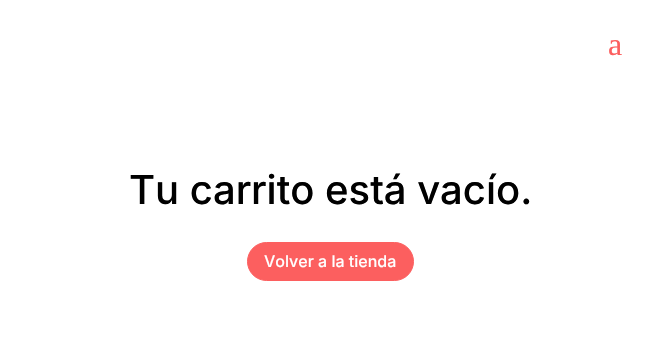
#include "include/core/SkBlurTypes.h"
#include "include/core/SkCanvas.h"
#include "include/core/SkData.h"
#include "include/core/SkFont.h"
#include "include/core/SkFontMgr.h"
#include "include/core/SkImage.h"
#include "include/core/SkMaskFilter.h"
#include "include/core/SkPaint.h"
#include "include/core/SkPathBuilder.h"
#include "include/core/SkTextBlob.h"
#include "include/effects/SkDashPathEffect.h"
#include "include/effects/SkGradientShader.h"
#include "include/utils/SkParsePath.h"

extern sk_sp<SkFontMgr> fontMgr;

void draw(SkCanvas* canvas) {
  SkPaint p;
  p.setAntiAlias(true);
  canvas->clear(SK_ColorWHITE);
  p.setColor(SkColorSetRGB(252, 95, 95));
  canvas->drawRoundRect(SkRect::MakeLTRB(247.5f, 242.5f, 413.5f, 280.5f), 19, 19, p);
  p.setStyle(SkPaint::kStroke_Style);
  p.setStrokeWidth(1);
  canvas->drawRoundRect(SkRect::MakeLTRB(247.5f, 242.5f, 413.5f, 280.5f), 19, 19, p);
  SkFont font1(fontMgr->matchFamilyStyle("Liberation Serif", SkFontStyle::Normal()), 32);
  font1.setSubpixel(true);
  p.setStyle(SkPaint::kFill_Style);
  canvas->drawString("a", 608, 55, font1, p);
  SkFont font2(fontMgr->matchFamilyStyle("Inter", SkFontStyle(500, SkFontStyle::kNormal_Width, SkFontStyle::kUpright_Slant)), 40);
  font2.setSubpixel(true);
  p.setColor(SK_ColorBLACK);
  canvas->drawString("Tu carrito está vacío.", 129, 204, font2, p);
  SkFont font3(fontMgr->matchFamilyStyle("Inter", SkFontStyle(500, SkFontStyle::kNormal_Width, SkFontStyle::kUpright_Slant)), 16);
  font3.setSubpixel(true);
  p.setColor(SK_ColorWHITE);
  canvas->drawString("Volver a la tienda", 264, 267, font3, p);
}
